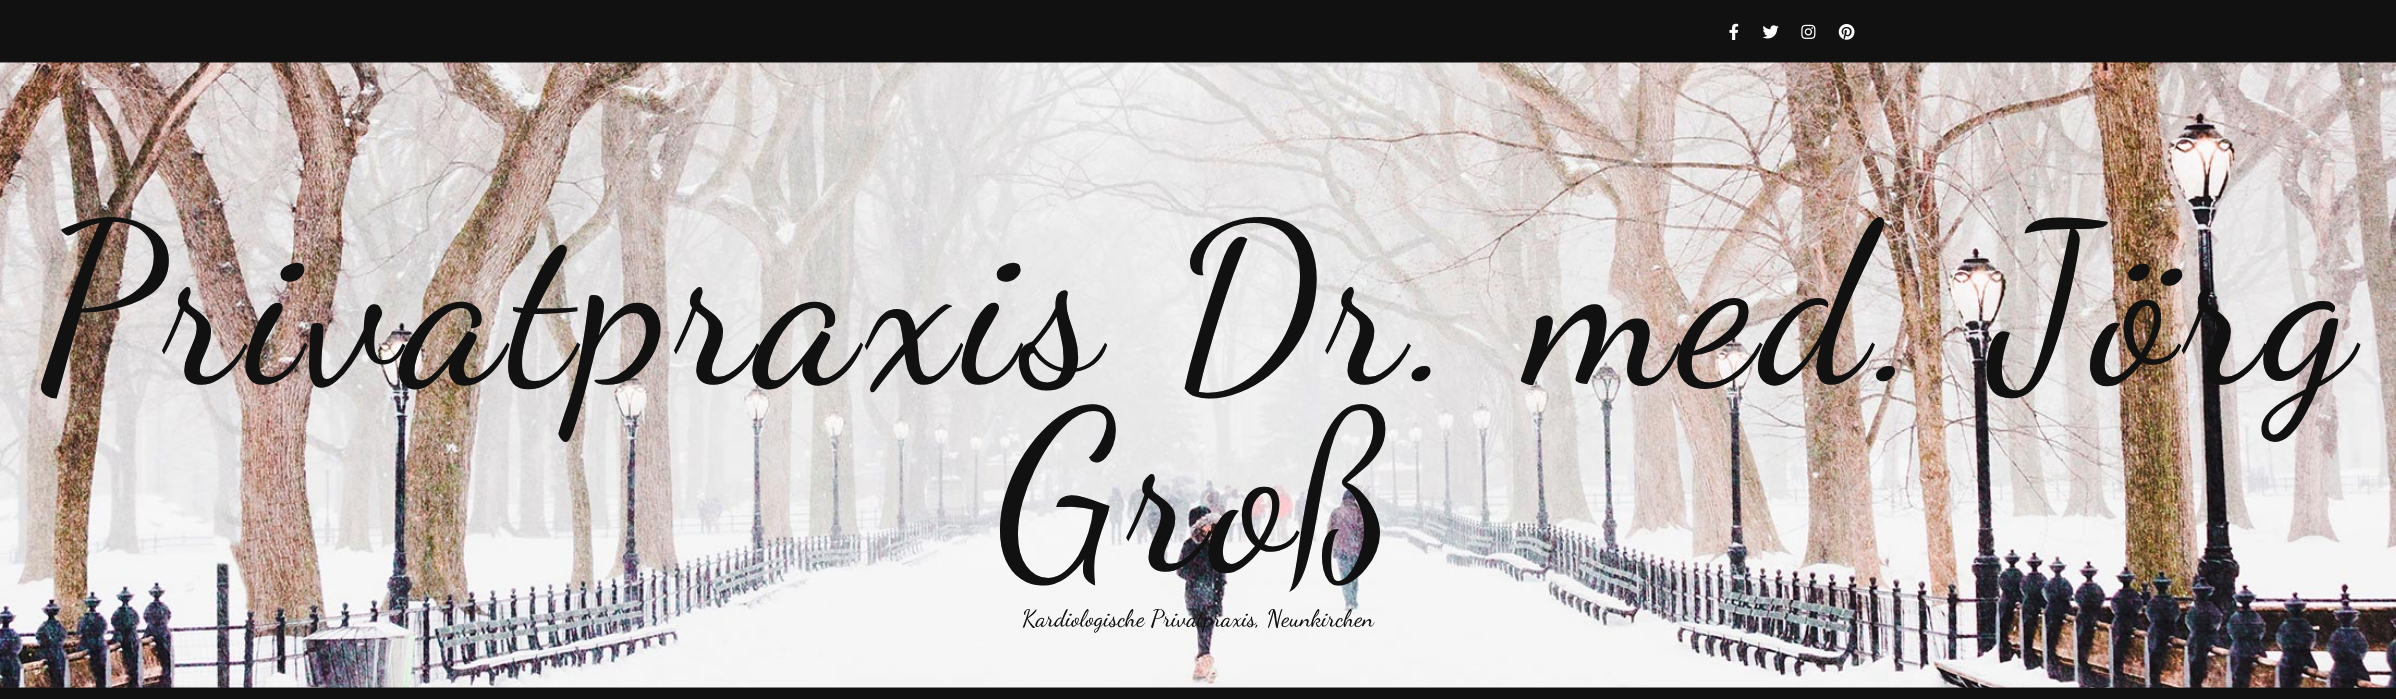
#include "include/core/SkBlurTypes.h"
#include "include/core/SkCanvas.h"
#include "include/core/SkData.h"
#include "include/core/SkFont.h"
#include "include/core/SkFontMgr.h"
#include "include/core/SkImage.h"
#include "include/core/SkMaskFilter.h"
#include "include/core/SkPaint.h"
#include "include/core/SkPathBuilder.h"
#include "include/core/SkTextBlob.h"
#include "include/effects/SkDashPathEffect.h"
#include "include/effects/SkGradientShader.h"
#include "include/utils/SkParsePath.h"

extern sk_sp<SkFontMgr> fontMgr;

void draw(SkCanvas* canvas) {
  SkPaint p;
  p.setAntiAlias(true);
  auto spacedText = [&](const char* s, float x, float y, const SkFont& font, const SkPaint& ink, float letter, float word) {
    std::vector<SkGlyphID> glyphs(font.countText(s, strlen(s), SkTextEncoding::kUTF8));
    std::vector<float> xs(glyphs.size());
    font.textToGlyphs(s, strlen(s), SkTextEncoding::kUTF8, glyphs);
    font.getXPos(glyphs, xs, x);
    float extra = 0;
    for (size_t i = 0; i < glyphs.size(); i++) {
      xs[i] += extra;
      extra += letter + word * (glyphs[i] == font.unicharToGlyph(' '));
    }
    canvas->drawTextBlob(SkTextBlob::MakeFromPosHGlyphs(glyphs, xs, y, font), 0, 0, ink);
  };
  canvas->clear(SkColorSetRGB(17, 17, 17));
  canvas->drawImageRect(SkImages::DeferredFromEncodedData(SkData::MakeFromFileName("images/1.png")), SkRect::MakeLTRB(1729, 23, 1739, 40), SkSamplingOptions());
  canvas->drawImageRect(SkImages::DeferredFromEncodedData(SkData::MakeFromFileName("images/2.png")), SkRect::MakeLTRB(1762, 25, 1779, 39), SkSamplingOptions());
  canvas->drawImageRect(SkImages::DeferredFromEncodedData(SkData::MakeFromFileName("images/3.png")), SkRect::MakeLTRB(1801, 24, 1816, 39), SkSamplingOptions());
  canvas->drawImageRect(SkImages::DeferredFromEncodedData(SkData::MakeFromFileName("images/4.png")), SkRect::MakeLTRB(1838, 24, 1855, 40), SkSamplingOptions());
  canvas->drawImageRect(SkImages::DeferredFromEncodedData(SkData::MakeFromFileName("images/5.png")), SkRect::MakeLTRB(0, 62, 2396, 688), SkSamplingOptions());
  p.setColor(SkColorSetARGB(26, 255, 255, 255));
  p.setMaskFilter(SkMaskFilter::MakeBlur(kNormal_SkBlurStyle, 3));
  canvas->drawRect(SkRect::MakeLTRB(0, 689, 2396, 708), p);
  p.setMaskFilter(nullptr);
  p.setColor(SkColorSetRGB(17, 17, 17));
  canvas->drawRect(SkRect::MakeLTRB(0, 688, 2396, 699), p);
  SkFont font1(fontMgr->matchFamilyStyle("Dancing Script", SkFontStyle::Normal()), 225);
  font1.setSubpixel(true);
  spacedText("Privatpraxis Dr. med. Jörg", 37, 379, font1, p, 6.25f, 0);
  spacedText("Groß", 995, 566, font1, p, 6.25f, 0);
  SkFont font2(fontMgr->matchFamilyStyle("Dancing Script", SkFontStyle::Normal()), 23.75f);
  font2.setSubpixel(true);
  canvas->drawString("Kardiologische Privatpraxis, Neunkirchen", 1022, 626, font2, p);
}
